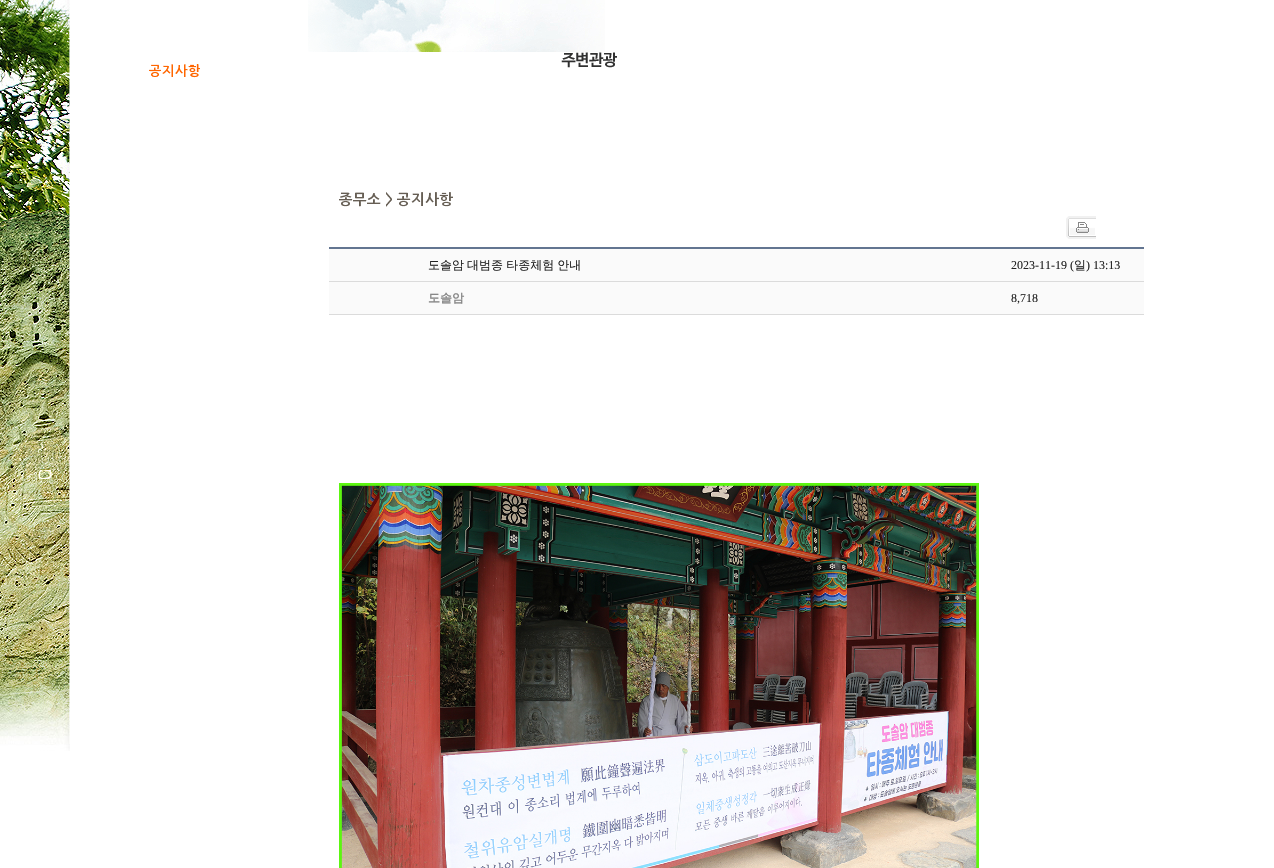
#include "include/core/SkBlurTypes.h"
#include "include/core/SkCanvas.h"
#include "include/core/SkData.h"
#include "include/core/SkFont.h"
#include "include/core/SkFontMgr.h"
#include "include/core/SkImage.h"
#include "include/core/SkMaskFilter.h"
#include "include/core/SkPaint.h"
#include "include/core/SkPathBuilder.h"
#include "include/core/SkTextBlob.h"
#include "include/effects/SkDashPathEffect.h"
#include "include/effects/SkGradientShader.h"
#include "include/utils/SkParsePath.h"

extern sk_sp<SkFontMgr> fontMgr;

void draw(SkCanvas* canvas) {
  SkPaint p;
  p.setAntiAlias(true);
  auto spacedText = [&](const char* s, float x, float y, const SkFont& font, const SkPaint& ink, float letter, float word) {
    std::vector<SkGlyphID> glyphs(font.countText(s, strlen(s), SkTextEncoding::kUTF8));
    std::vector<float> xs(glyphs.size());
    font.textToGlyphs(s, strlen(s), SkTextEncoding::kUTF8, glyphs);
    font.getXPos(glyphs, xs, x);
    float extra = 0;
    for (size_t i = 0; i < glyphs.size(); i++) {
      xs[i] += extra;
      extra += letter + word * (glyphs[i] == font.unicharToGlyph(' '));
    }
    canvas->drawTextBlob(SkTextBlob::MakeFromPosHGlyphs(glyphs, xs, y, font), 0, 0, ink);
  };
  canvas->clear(SK_ColorWHITE);
  canvas->drawImageRect(SkImages::DeferredFromEncodedData(SkData::MakeFromFileName("images/1.png")), SkRect::MakeLTRB(0, 0, 70, 751), SkSamplingOptions());
  canvas->drawImageRect(SkImages::DeferredFromEncodedData(SkData::MakeFromFileName("images/2.png")), SkRect::MakeLTRB(149, 64, 200, 78), SkSamplingOptions());
  canvas->drawImageRect(SkImages::DeferredFromEncodedData(SkData::MakeFromFileName("images/3.png")), SkRect::MakeLTRB(308, 0, 605, 52), SkSamplingOptions());
  canvas->drawImageRect(SkImages::DeferredFromEncodedData(SkData::MakeFromFileName("images/4.png")), SkRect::MakeLTRB(561, 52, 617, 68), SkSamplingOptions());
  canvas->drawImageRect(SkImages::DeferredFromEncodedData(SkData::MakeFromFileName("images/5.png")), SkRect::MakeLTRB(339, 192, 453, 207), SkSamplingOptions());
  canvas->drawImageRect(SkImages::DeferredFromEncodedData(SkData::MakeFromFileName("images/6.png")), SkRect::MakeLTRB(1066, 216, 1096, 239), SkSamplingOptions());
  p.setColor(SkColorSetRGB(99, 117, 145));
  canvas->drawRect(SkRect::MakeLTRB(329, 247, 1144, 249), p);
  p.setColor(SkColorSetRGB(250, 250, 250));
  canvas->drawRect(SkRect::MakeLTRB(329, 249, 1144, 281), p);
  p.setColor(SkColorSetRGB(219, 219, 219));
  canvas->drawRect(SkRect::MakeLTRB(329, 281, 1144, 282), p);
  p.setColor(SkColorSetRGB(250, 250, 250));
  canvas->drawRect(SkRect::MakeLTRB(329, 282, 1144, 314), p);
  p.setColor(SkColorSetRGB(219, 219, 219));
  canvas->drawRect(SkRect::MakeLTRB(329, 314, 1144, 315), p);
  canvas->drawImageRect(SkImages::DeferredFromEncodedData(SkData::MakeFromFileName("images/7.png")), SkRect::MakeLTRB(339, 483, 979, 868), SkSamplingOptions());
  SkFont font1(fontMgr->matchFamilyStyle("WenQuanYi Zen Hei", SkFontStyle(500, SkFontStyle::kNormal_Width, SkFontStyle::kUpright_Slant)), 12);
  font1.setSubpixel(true);
  p.setColor(SkColorSetRGB(34, 34, 34));
  spacedText("도솔암 대범종 타종체험 안내", 428, 269, font1, p, 0, -0.5f);
  SkFont font2(fontMgr->matchFamilyStyle("Liberation Serif", SkFontStyle::Normal()), 12);
  font2.setSubpixel(true);
  canvas->drawString("2023-11-19 (", 1011, 269, font2, p);
  canvas->drawString("일", 1074, 269, font1, p);
  canvas->drawString(") 13:13", 1086, 269, font2, p);
  SkFont font3(fontMgr->matchFamilyStyle("WenQuanYi Zen Hei", SkFontStyle::Bold()), 12);
  font3.setSubpixel(true);
  p.setColor(SkColorSetRGB(136, 136, 136));
  canvas->drawString("도솔암", 428, 302, font3, p);
  p.setColor(SkColorSetRGB(34, 34, 34));
  canvas->drawString("8,718", 1011, 302, font2, p);
}
